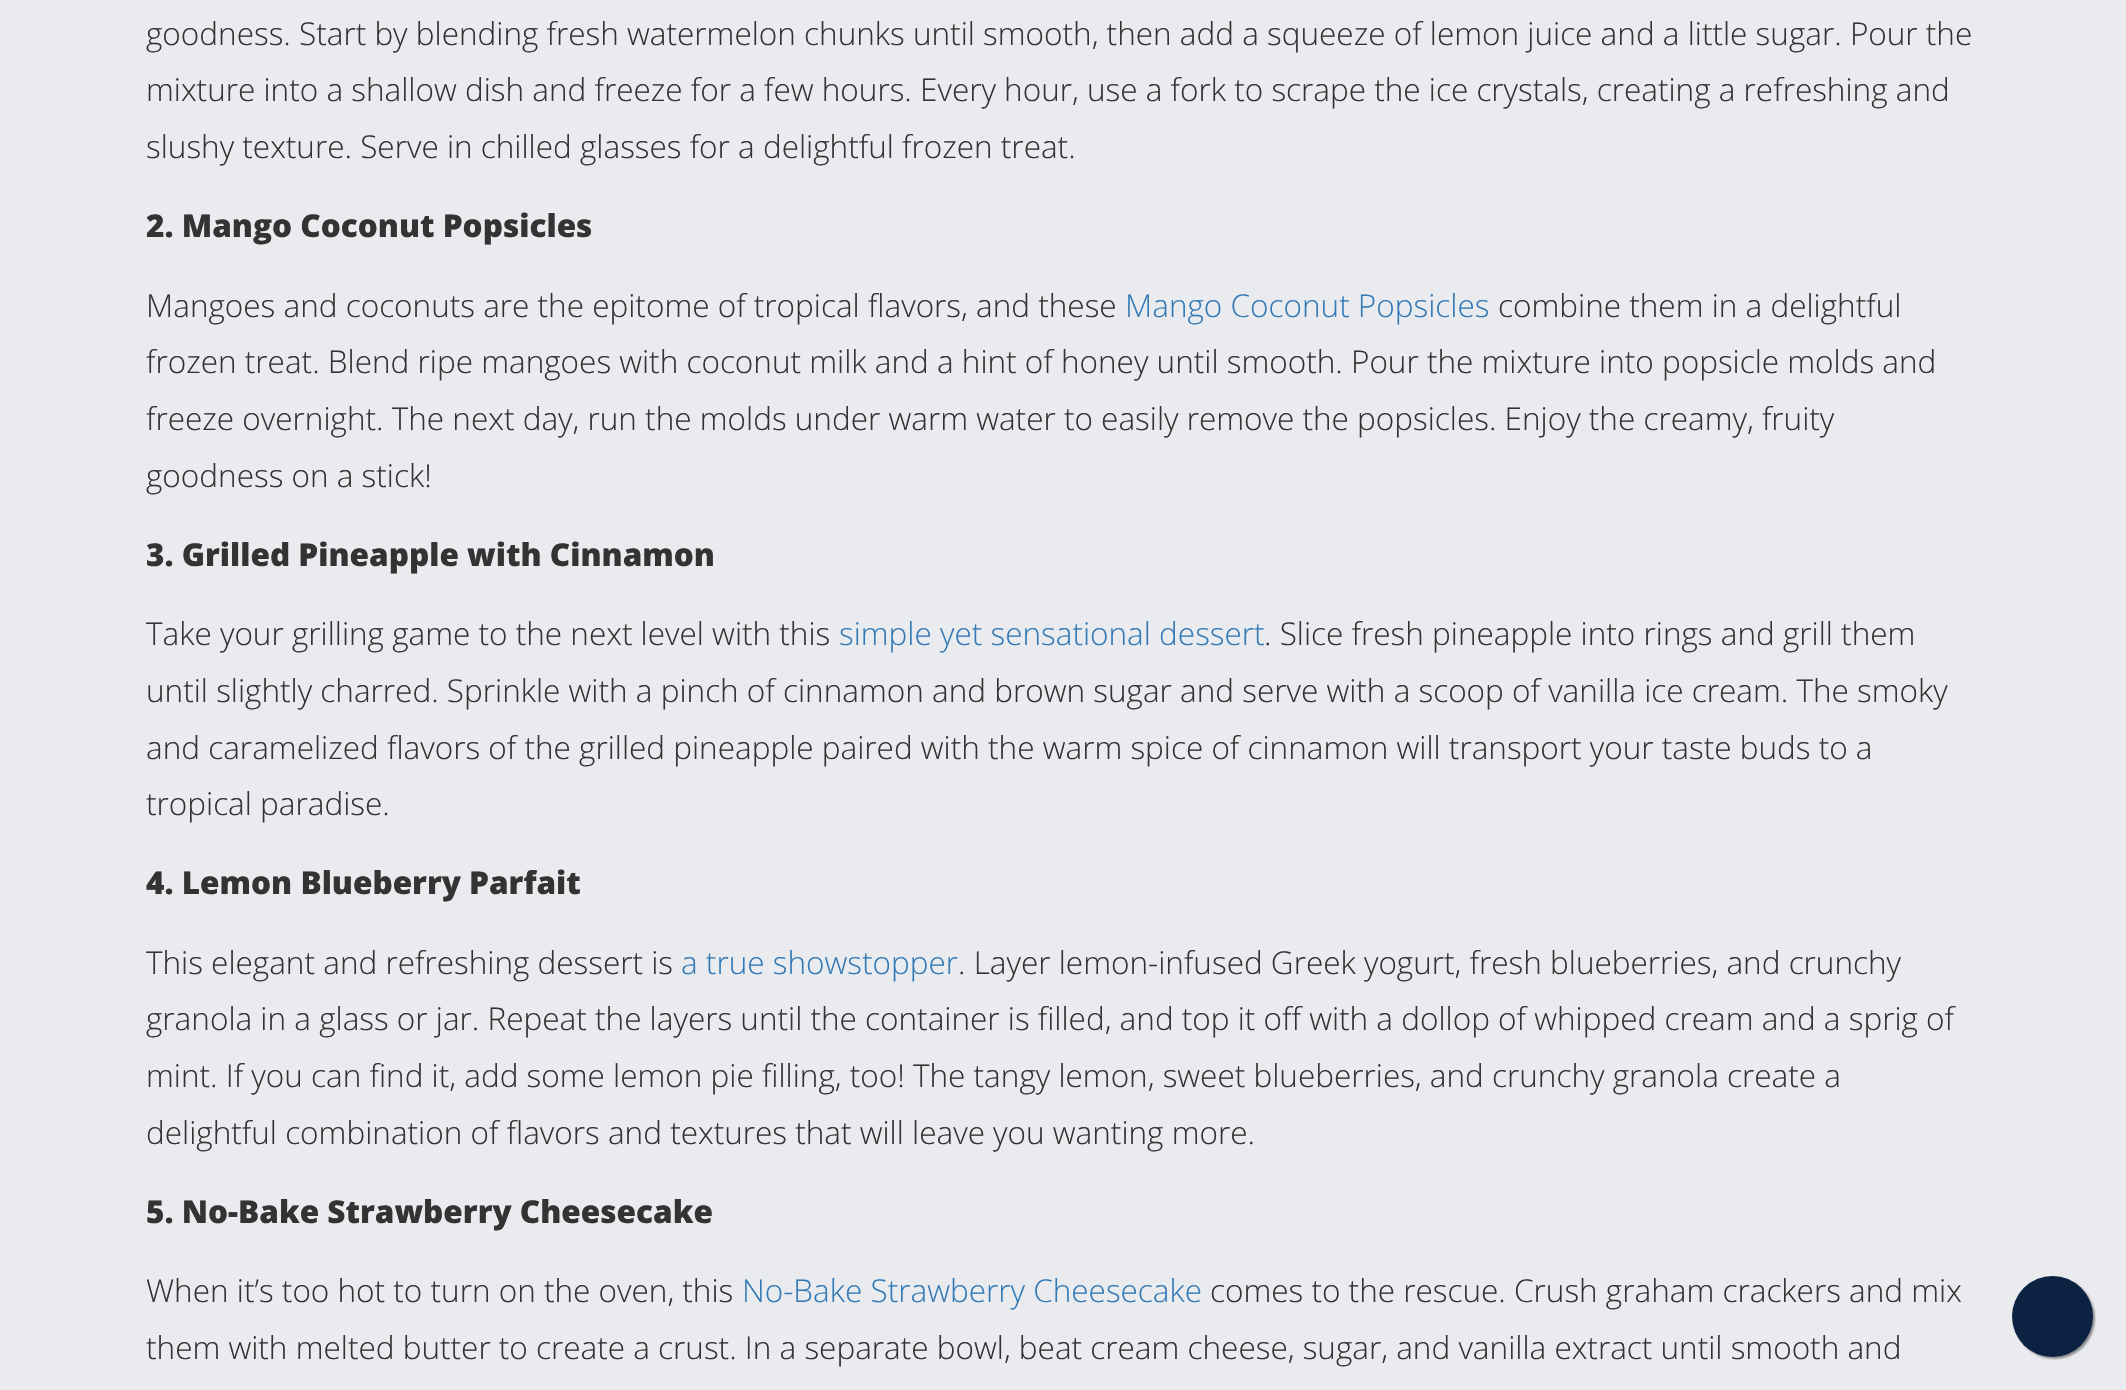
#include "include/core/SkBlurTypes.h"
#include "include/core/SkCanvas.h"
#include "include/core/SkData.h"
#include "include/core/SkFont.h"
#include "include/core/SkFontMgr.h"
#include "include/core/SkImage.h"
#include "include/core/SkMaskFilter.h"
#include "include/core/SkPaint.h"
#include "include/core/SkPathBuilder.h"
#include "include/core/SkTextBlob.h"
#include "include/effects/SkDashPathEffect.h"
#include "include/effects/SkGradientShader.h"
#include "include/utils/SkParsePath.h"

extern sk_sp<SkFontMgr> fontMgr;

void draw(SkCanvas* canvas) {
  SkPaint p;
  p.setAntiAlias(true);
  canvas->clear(SkColorSetRGB(233, 235, 238));
  p.setColor(SkColorSetARGB(102, 0, 0, 0));
  p.setMaskFilter(SkMaskFilter::MakeBlur(kNormal_SkBlurStyle, 1));
  canvas->drawRoundRect(SkRect::MakeLTRB(2014, 1278, 2095, 1359), 40.5f, 40.5f, p);
  p.setMaskFilter(nullptr);
  p.setColor(SkColorSetRGB(11, 34, 66));
  canvas->drawCircle(2052.5f, 1316.5f, 40.5f, p);
  SkFont font1(fontMgr->matchFamilyStyle("Open Sans", SkFontStyle(300, SkFontStyle::kNormal_Width, SkFontStyle::kUpright_Slant)), 31.5f);
  font1.setSubpixel(true);
  p.setColor(SkColorSetRGB(51, 51, 51));
  canvas->drawString("goodness. Start by blending fresh watermelon chunks until smooth, then add a squeeze of lemon juice and a little sugar. Pour the", 146, 45, font1, p);
  canvas->drawString("mixture into a shallow dish and freeze for a few hours. Every hour, use a fork to scrape the ice crystals, creating a refreshing and", 146, 101, font1, p);
  canvas->drawString("slushy texture. Serve in chilled glasses for a delightful frozen treat.", 146, 158, font1, p);
  SkFont font2(fontMgr->matchFamilyStyle("Open Sans", SkFontStyle(800, SkFontStyle::kNormal_Width, SkFontStyle::kUpright_Slant)), 31.5f);
  font2.setSubpixel(true);
  canvas->drawString("2. Mango Coconut Popsicles", 146, 237, font2, p);
  canvas->drawString("Mangoes and coconuts are the epitome of tropical flavors, and these", 146, 317, font1, p);
  p.setColor(SkColorSetRGB(51, 122, 183));
  canvas->drawString("Mango Coconut Popsicles", 1125, 317, font1, p);
  p.setColor(SkColorSetRGB(51, 51, 51));
  canvas->drawString("combine them in a delightful", 1498, 317, font1, p);
  canvas->drawString("frozen treat. Blend ripe mangoes with coconut milk and a hint of honey until smooth. Pour the mixture into popsicle molds and", 146, 373, font1, p);
  canvas->drawString("freeze overnight. The next day, run the molds under warm water to easily remove the popsicles. Enjoy the creamy, fruity", 146, 430, font1, p);
  canvas->drawString("goodness on a stick!", 146, 487, font1, p);
  canvas->drawString("3. Grilled Pineapple with Cinnamon", 146, 566, font2, p);
  canvas->drawString("Take your grilling game to the next level with this", 146, 645, font1, p);
  p.setColor(SkColorSetRGB(51, 122, 183));
  canvas->drawString("simple yet sensational dessert", 839, 645, font1, p);
  p.setColor(SkColorSetRGB(51, 51, 51));
  canvas->drawString(". Slice fresh pineapple into rings and grill them", 1264, 645, font1, p);
  canvas->drawString("until slightly charred. Sprinkle with a pinch of cinnamon and brown sugar and serve with a scoop of vanilla ice cream. The smoky", 146, 702, font1, p);
  canvas->drawString("and caramelized flavors of the grilled pineapple paired with the warm spice of cinnamon will transport your taste buds to a", 146, 759, font1, p);
  canvas->drawString("tropical paradise.", 146, 815, font1, p);
  canvas->drawString("4. Lemon Blueberry Parfait", 146, 894, font2, p);
  canvas->drawString("This elegant and refreshing dessert is", 146, 974, font1, p);
  p.setColor(SkColorSetRGB(51, 122, 183));
  canvas->drawString("a true showstopper", 681, 974, font1, p);
  p.setColor(SkColorSetRGB(51, 51, 51));
  canvas->drawString(". Layer lemon-infused Greek yogurt, fresh blueberries, and crunchy", 958, 974, font1, p);
  canvas->drawString("granola in a glass or jar. Repeat the layers until the container is filled, and top it off with a dollop of whipped cream and a sprig of", 146, 1030, font1, p);
  canvas->drawString("mint. If you can find it, add some lemon pie filling, too! The tangy lemon, sweet blueberries, and crunchy granola create a", 146, 1087, font1, p);
  canvas->drawString("delightful combination of flavors and textures that will leave you wanting more.", 146, 1144, font1, p);
  canvas->drawString("5. No-Bake Strawberry Cheesecake", 146, 1223, font2, p);
  canvas->drawString("When it’s too hot to turn on the oven, this", 146, 1302, font1, p);
  p.setColor(SkColorSetRGB(51, 122, 183));
  canvas->drawString("No-Bake Strawberry Cheesecake", 742, 1302, font1, p);
  p.setColor(SkColorSetRGB(51, 51, 51));
  canvas->drawString("comes to the rescue. Crush graham crackers and mix", 1210, 1302, font1, p);
  canvas->drawString("them with melted butter to create a crust. In a separate bowl, beat cream cheese, sugar, and vanilla extract until smooth and", 146, 1359, font1, p);
}
